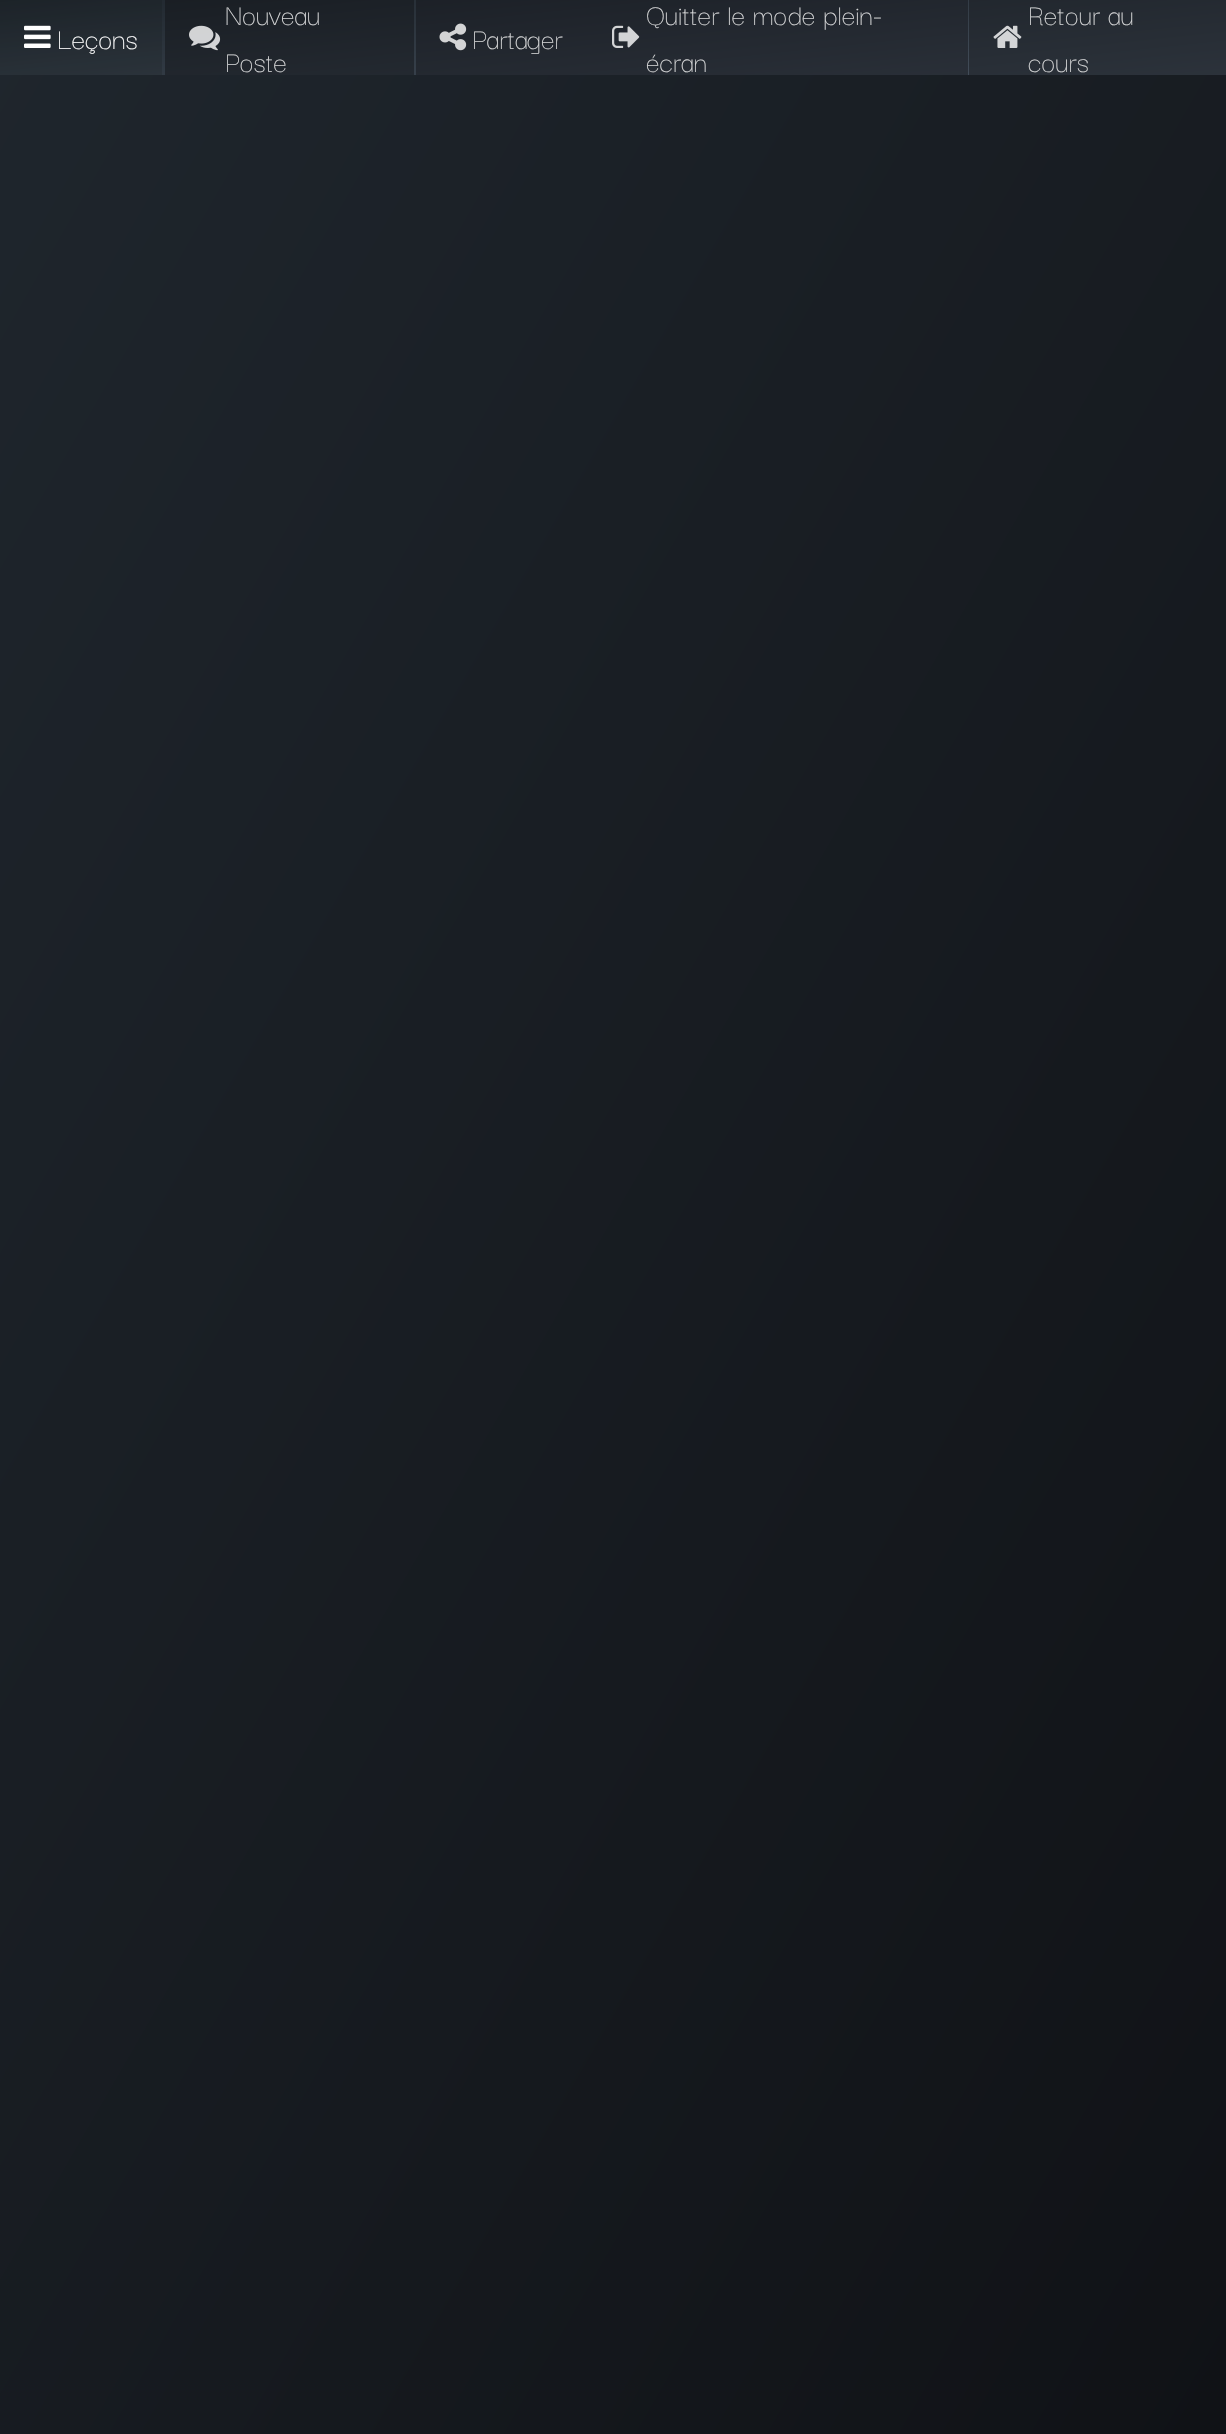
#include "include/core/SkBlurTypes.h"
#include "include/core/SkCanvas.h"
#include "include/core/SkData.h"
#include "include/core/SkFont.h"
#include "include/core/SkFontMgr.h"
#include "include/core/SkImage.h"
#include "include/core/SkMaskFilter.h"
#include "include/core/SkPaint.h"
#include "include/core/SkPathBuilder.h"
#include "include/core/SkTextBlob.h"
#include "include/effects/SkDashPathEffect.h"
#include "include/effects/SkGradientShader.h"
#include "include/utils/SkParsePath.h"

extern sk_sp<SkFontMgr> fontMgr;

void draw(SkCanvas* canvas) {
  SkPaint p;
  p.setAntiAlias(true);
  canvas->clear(SK_ColorWHITE);
  {
    const SkColor colors[] = {SkColorSetRGB(31, 38, 45), SkColorSetRGB(16, 18, 22)};
    const float stops[] = {0, 1};
    const SkPoint ends[] = {{-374, 647}, {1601, 1787}};
    p.setShader(SkGradientShader::MakeLinear(ends, colors, stops, 2, SkTileMode::kClamp));
    p.setAlpha(255);
  }
  canvas->drawRect(SkRect::MakeLTRB(0, 75, 1226, 2434), p);
  {
    const SkColor colors[] = {SkColorSetRGB(71, 82, 95), SkColorSetRGB(31, 38, 45)};
    const float stops[] = {0, 1};
    const SkPoint ends[] = {{624, 138}, {603, -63}};
    p.setShader(SkGradientShader::MakeLinear(ends, colors, stops, 2, SkTileMode::kClamp));
    p.setAlpha(255);
  }
  canvas->drawRect(SkRect::MakeLTRB(0, 0, 1226, 75), p);
  {
    const SkColor colors[] = {SkColorSetRGB(44, 50, 59), SkColorSetRGB(24, 28, 34)};
    const float stops[] = {0, 1};
    const SkPoint ends[] = {{624, 138}, {603, -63}};
    p.setShader(SkGradientShader::MakeLinear(ends, colors, stops, 2, SkTileMode::kClamp));
    p.setAlpha(255);
  }
  canvas->drawRect(SkRect::MakeLTRB(588, 0, 968, 75), p);
  canvas->drawRect(SkRect::MakeLTRB(416, 0, 588, 75), p);
  p.setShader(nullptr);
  p.setColor(SkColorSetARGB(51, 16, 18, 22));
  canvas->drawRect(SkRect::MakeLTRB(0, 0, 162, 75), p);
  canvas->drawImageRect(SkImages::DeferredFromEncodedData(SkData::MakeFromFileName("images/1.png")), SkRect::MakeLTRB(24, 25, 51, 48), SkSamplingOptions());
  p.setColor(SkColorSetARGB(128, 16, 18, 22));
  canvas->drawRect(SkRect::MakeLTRB(165, 0, 414, 75), p);
  canvas->drawImageRect(SkImages::DeferredFromEncodedData(SkData::MakeFromFileName("images/2.png")), SkRect::MakeLTRB(189, 25, 221, 51), SkSamplingOptions());
  canvas->drawImageRect(SkImages::DeferredFromEncodedData(SkData::MakeFromFileName("images/3.png")), SkRect::MakeLTRB(439, 23, 467, 51), SkSamplingOptions());
  canvas->drawImageRect(SkImages::DeferredFromEncodedData(SkData::MakeFromFileName("images/4.png")), SkRect::MakeLTRB(612, 25, 640, 48), SkSamplingOptions());
  canvas->drawRect(SkRect::MakeLTRB(969, 0, 1226, 75), p);
  canvas->drawImageRect(SkImages::DeferredFromEncodedData(SkData::MakeFromFileName("images/5.png")), SkRect::MakeLTRB(993, 25, 1022, 48), SkSamplingOptions());
  SkFont font1(fontMgr->matchFamilyStyle("Darker Grotesque", SkFontStyle(300, SkFontStyle::kNormal_Width, SkFontStyle::kUpright_Slant)), 31);
  font1.setSubpixel(true);
  p.setColor(SK_ColorWHITE);
  canvas->drawString("Leçons", 57, 49, font1, p);
  p.setColor(SkColorSetRGB(210, 211, 212));
  canvas->drawString("Nouveau", 225, 25, font1, p);
  canvas->drawString("Poste", 225, 72, font1, p);
  canvas->drawString("Partager", 472, 49, font1, p);
  canvas->drawString("Quitter le mode plein-", 646, 25, font1, p);
  canvas->drawString("écran", 646, 72, font1, p);
  canvas->drawString("Retour au", 1028, 25, font1, p);
  canvas->drawString("cours", 1028, 72, font1, p);
}
